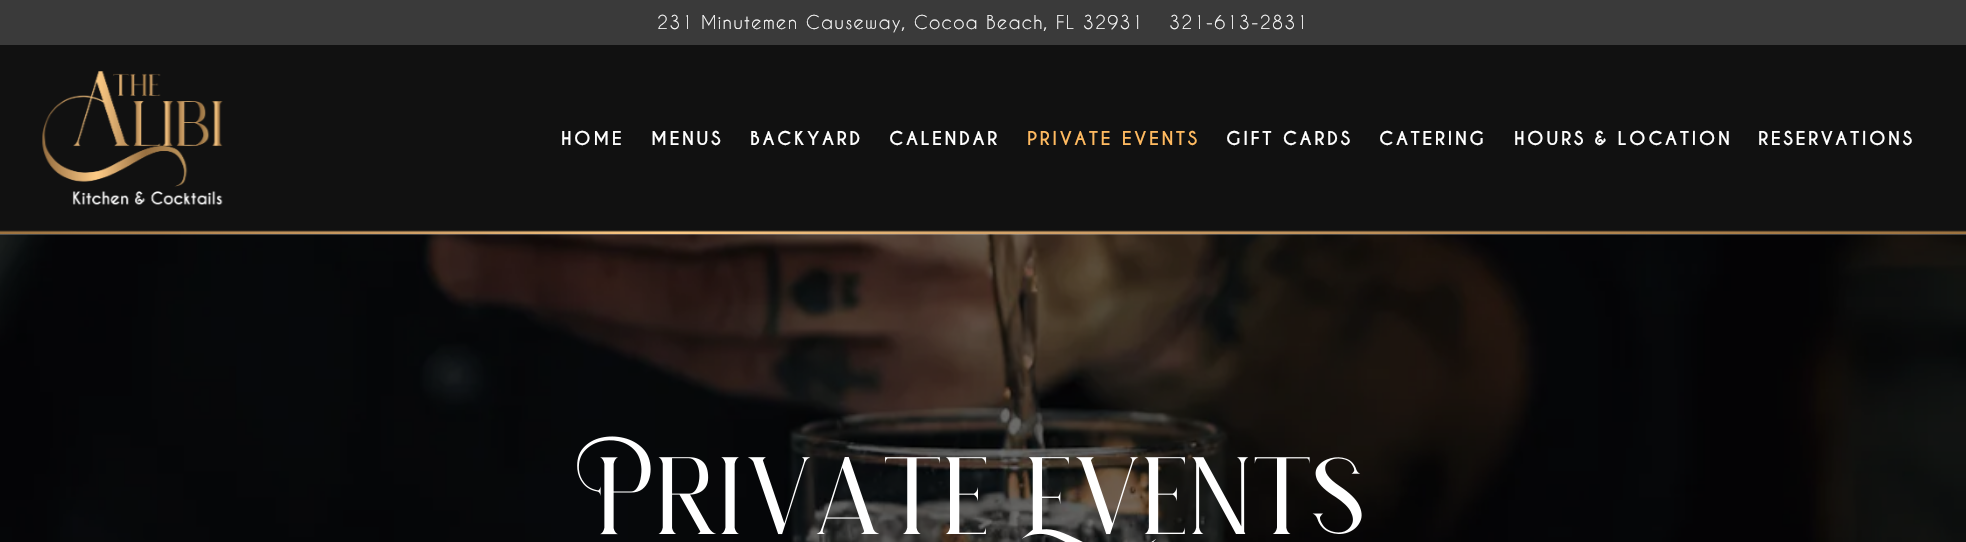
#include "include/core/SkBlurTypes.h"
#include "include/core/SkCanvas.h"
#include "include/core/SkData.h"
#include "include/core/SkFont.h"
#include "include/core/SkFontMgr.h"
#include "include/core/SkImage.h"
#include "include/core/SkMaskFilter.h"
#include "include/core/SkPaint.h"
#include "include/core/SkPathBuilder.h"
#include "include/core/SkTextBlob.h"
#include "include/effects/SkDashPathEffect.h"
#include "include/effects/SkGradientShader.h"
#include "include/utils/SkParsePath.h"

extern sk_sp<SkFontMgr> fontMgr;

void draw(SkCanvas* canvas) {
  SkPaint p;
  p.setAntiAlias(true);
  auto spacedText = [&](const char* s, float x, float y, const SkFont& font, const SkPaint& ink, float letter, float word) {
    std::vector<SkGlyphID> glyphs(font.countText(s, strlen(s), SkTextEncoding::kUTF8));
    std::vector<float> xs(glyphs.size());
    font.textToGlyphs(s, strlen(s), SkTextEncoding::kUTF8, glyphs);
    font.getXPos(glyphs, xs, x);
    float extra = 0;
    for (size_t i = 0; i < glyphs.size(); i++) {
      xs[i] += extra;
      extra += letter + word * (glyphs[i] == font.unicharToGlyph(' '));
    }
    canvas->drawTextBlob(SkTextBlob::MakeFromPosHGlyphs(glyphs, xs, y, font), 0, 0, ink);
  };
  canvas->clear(SK_ColorWHITE);
  p.setColor(SkColorSetRGB(58, 58, 58));
  canvas->drawRect(SkRect::MakeLTRB(0, 0, 1966, 45), p);
  p.setColor(SkColorSetRGB(17, 17, 17));
  canvas->drawRect(SkRect::MakeLTRB(0, 45, 1966, 232), p);
  canvas->drawImageRect(SkImages::DeferredFromEncodedData(SkData::MakeFromFileName("images/1.png")), SkRect::MakeLTRB(0, 230, 1966, 234), SkSamplingOptions());
  canvas->drawImageRect(SkImages::DeferredFromEncodedData(SkData::MakeFromFileName("images/2.png")), SkRect::MakeLTRB(42, 71, 223, 205), SkSamplingOptions());
  canvas->drawImageRect(SkImages::DeferredFromEncodedData(SkData::MakeFromFileName("images/3.png")), SkRect::MakeLTRB(0, 234, 1966, 542), SkSamplingOptions());
  canvas->drawImageRect(SkImages::DeferredFromEncodedData(SkData::MakeFromFileName("images/4.png")), SkRect::MakeLTRB(577, 436, 1362, 542), SkSamplingOptions());
  SkFont font1(fontMgr->matchFamilyStyle("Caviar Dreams", SkFontStyle::Normal()), 18);
  font1.setSubpixel(true);
  p.setColor(SK_ColorWHITE);
  spacedText("231 Minutemen Causeway, Cocoa Beach, FL 32931", 657, 29, font1, p, 1.25f, 0);
  spacedText("321-613-2831", 1169, 29, font1, p, 1.25f, 0);
  SkFont font2(fontMgr->matchFamilyStyle("Caviar Dreams", SkFontStyle::Bold()), 18);
  font2.setSubpixel(true);
  spacedText("HOME", 561, 145, font2, p, 2.5f, 0);
  spacedText("MENUS", 651, 145, font2, p, 2.5f, 0);
  spacedText("BACKYARD", 750, 145, font2, p, 2.5f, 0);
  spacedText("CALENDAR", 889, 145, font2, p, 2.5f, 0);
  p.setColor(SkColorSetRGB(255, 186, 96));
  spacedText("PRIVATE EVENTS", 1027, 145, font2, p, 2.5f, 0);
  p.setColor(SK_ColorWHITE);
  spacedText("GIFT CARDS", 1226, 145, font2, p, 2.5f, 0);
  spacedText("CATERING", 1379, 145, font2, p, 2.5f, 0);
  spacedText("HOURS & LOCATION", 1514, 145, font2, p, 2.5f, 0);
  spacedText("RESERVATIONS", 1758, 145, font2, p, 2.5f, 0);
}
